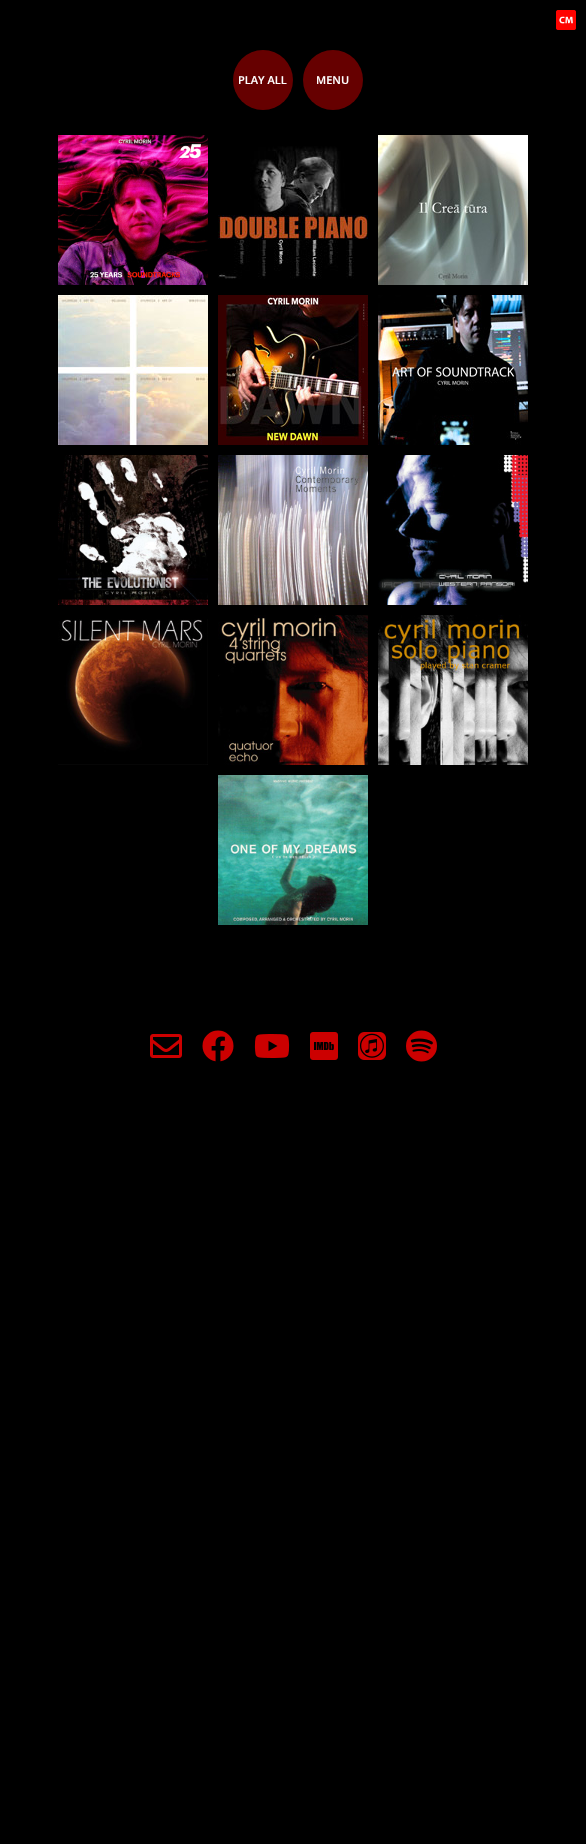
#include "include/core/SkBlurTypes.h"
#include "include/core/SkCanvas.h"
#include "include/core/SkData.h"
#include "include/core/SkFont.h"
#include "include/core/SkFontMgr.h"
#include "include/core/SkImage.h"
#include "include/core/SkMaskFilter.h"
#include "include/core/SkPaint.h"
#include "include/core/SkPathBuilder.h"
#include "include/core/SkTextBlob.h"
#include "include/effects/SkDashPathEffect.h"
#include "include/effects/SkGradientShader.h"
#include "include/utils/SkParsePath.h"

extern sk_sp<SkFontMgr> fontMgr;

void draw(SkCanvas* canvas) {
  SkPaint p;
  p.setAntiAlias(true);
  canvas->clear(SK_ColorBLACK);
  canvas->drawImageRect(SkImages::DeferredFromEncodedData(SkData::MakeFromFileName("images/1.png")), SkRect::MakeLTRB(556, 10, 576, 30), SkSamplingOptions());
  p.setColor(SkColorSetRGB(102, 0, 0));
  canvas->drawCircle(263, 80, 30, p);
  canvas->drawCircle(333, 80, 30, p);
  canvas->drawImageRect(SkImages::DeferredFromEncodedData(SkData::MakeFromFileName("images/2.png")), SkRect::MakeLTRB(58, 135, 208, 285), SkSamplingOptions());
  canvas->drawImageRect(SkImages::DeferredFromEncodedData(SkData::MakeFromFileName("images/3.png")), SkRect::MakeLTRB(218, 146, 368, 279), SkSamplingOptions());
  canvas->drawImageRect(SkImages::DeferredFromEncodedData(SkData::MakeFromFileName("images/4.png")), SkRect::MakeLTRB(378, 135, 528, 285), SkSamplingOptions());
  canvas->drawImageRect(SkImages::DeferredFromEncodedData(SkData::MakeFromFileName("images/5.png")), SkRect::MakeLTRB(58, 295, 208, 445), SkSamplingOptions());
  canvas->drawImageRect(SkImages::DeferredFromEncodedData(SkData::MakeFromFileName("images/6.png")), SkRect::MakeLTRB(218, 295, 368, 445), SkSamplingOptions());
  canvas->drawImageRect(SkImages::DeferredFromEncodedData(SkData::MakeFromFileName("images/7.png")), SkRect::MakeLTRB(378, 295, 528, 445), SkSamplingOptions());
  canvas->drawImageRect(SkImages::DeferredFromEncodedData(SkData::MakeFromFileName("images/8.png")), SkRect::MakeLTRB(58, 455, 208, 605), SkSamplingOptions());
  canvas->drawImageRect(SkImages::DeferredFromEncodedData(SkData::MakeFromFileName("images/9.png")), SkRect::MakeLTRB(218, 455, 368, 605), SkSamplingOptions());
  canvas->drawImageRect(SkImages::DeferredFromEncodedData(SkData::MakeFromFileName("images/10.png")), SkRect::MakeLTRB(378, 455, 528, 605), SkSamplingOptions());
  canvas->drawImageRect(SkImages::DeferredFromEncodedData(SkData::MakeFromFileName("images/11.png")), SkRect::MakeLTRB(58, 619, 208, 765), SkSamplingOptions());
  canvas->drawImageRect(SkImages::DeferredFromEncodedData(SkData::MakeFromFileName("images/12.png")), SkRect::MakeLTRB(218, 615, 368, 765), SkSamplingOptions());
  canvas->drawImageRect(SkImages::DeferredFromEncodedData(SkData::MakeFromFileName("images/13.png")), SkRect::MakeLTRB(378, 615, 528, 765), SkSamplingOptions());
  canvas->drawImageRect(SkImages::DeferredFromEncodedData(SkData::MakeFromFileName("images/14.png")), SkRect::MakeLTRB(218, 775, 368, 925), SkSamplingOptions());
  canvas->drawImageRect(SkImages::DeferredFromEncodedData(SkData::MakeFromFileName("images/15.png")), SkRect::MakeLTRB(150, 1034, 182, 1058), SkSamplingOptions());
  canvas->drawImageRect(SkImages::DeferredFromEncodedData(SkData::MakeFromFileName("images/16.png")), SkRect::MakeLTRB(202, 1030, 234, 1062), SkSamplingOptions());
  canvas->drawImageRect(SkImages::DeferredFromEncodedData(SkData::MakeFromFileName("images/17.png")), SkRect::MakeLTRB(254, 1034, 290, 1058), SkSamplingOptions());
  canvas->drawImageRect(SkImages::DeferredFromEncodedData(SkData::MakeFromFileName("images/18.png")), SkRect::MakeLTRB(310, 1032, 338, 1060), SkSamplingOptions());
  canvas->drawImageRect(SkImages::DeferredFromEncodedData(SkData::MakeFromFileName("images/19.png")), SkRect::MakeLTRB(358, 1032, 386, 1060), SkSamplingOptions());
  canvas->drawImageRect(SkImages::DeferredFromEncodedData(SkData::MakeFromFileName("images/20.png")), SkRect::MakeLTRB(406, 1030, 437, 1062), SkSamplingOptions());
  SkFont font1(fontMgr->matchFamilyStyle("Open Sans", SkFontStyle(600, SkFontStyle::kNormal_Width, SkFontStyle::kUpright_Slant)), 11);
  font1.setSubpixel(true);
  p.setColor(SK_ColorWHITE);
  canvas->drawString("PLAY ALL", 238, 84, font1, p);
  canvas->drawString("MENU", 316, 84, font1, p);
}
